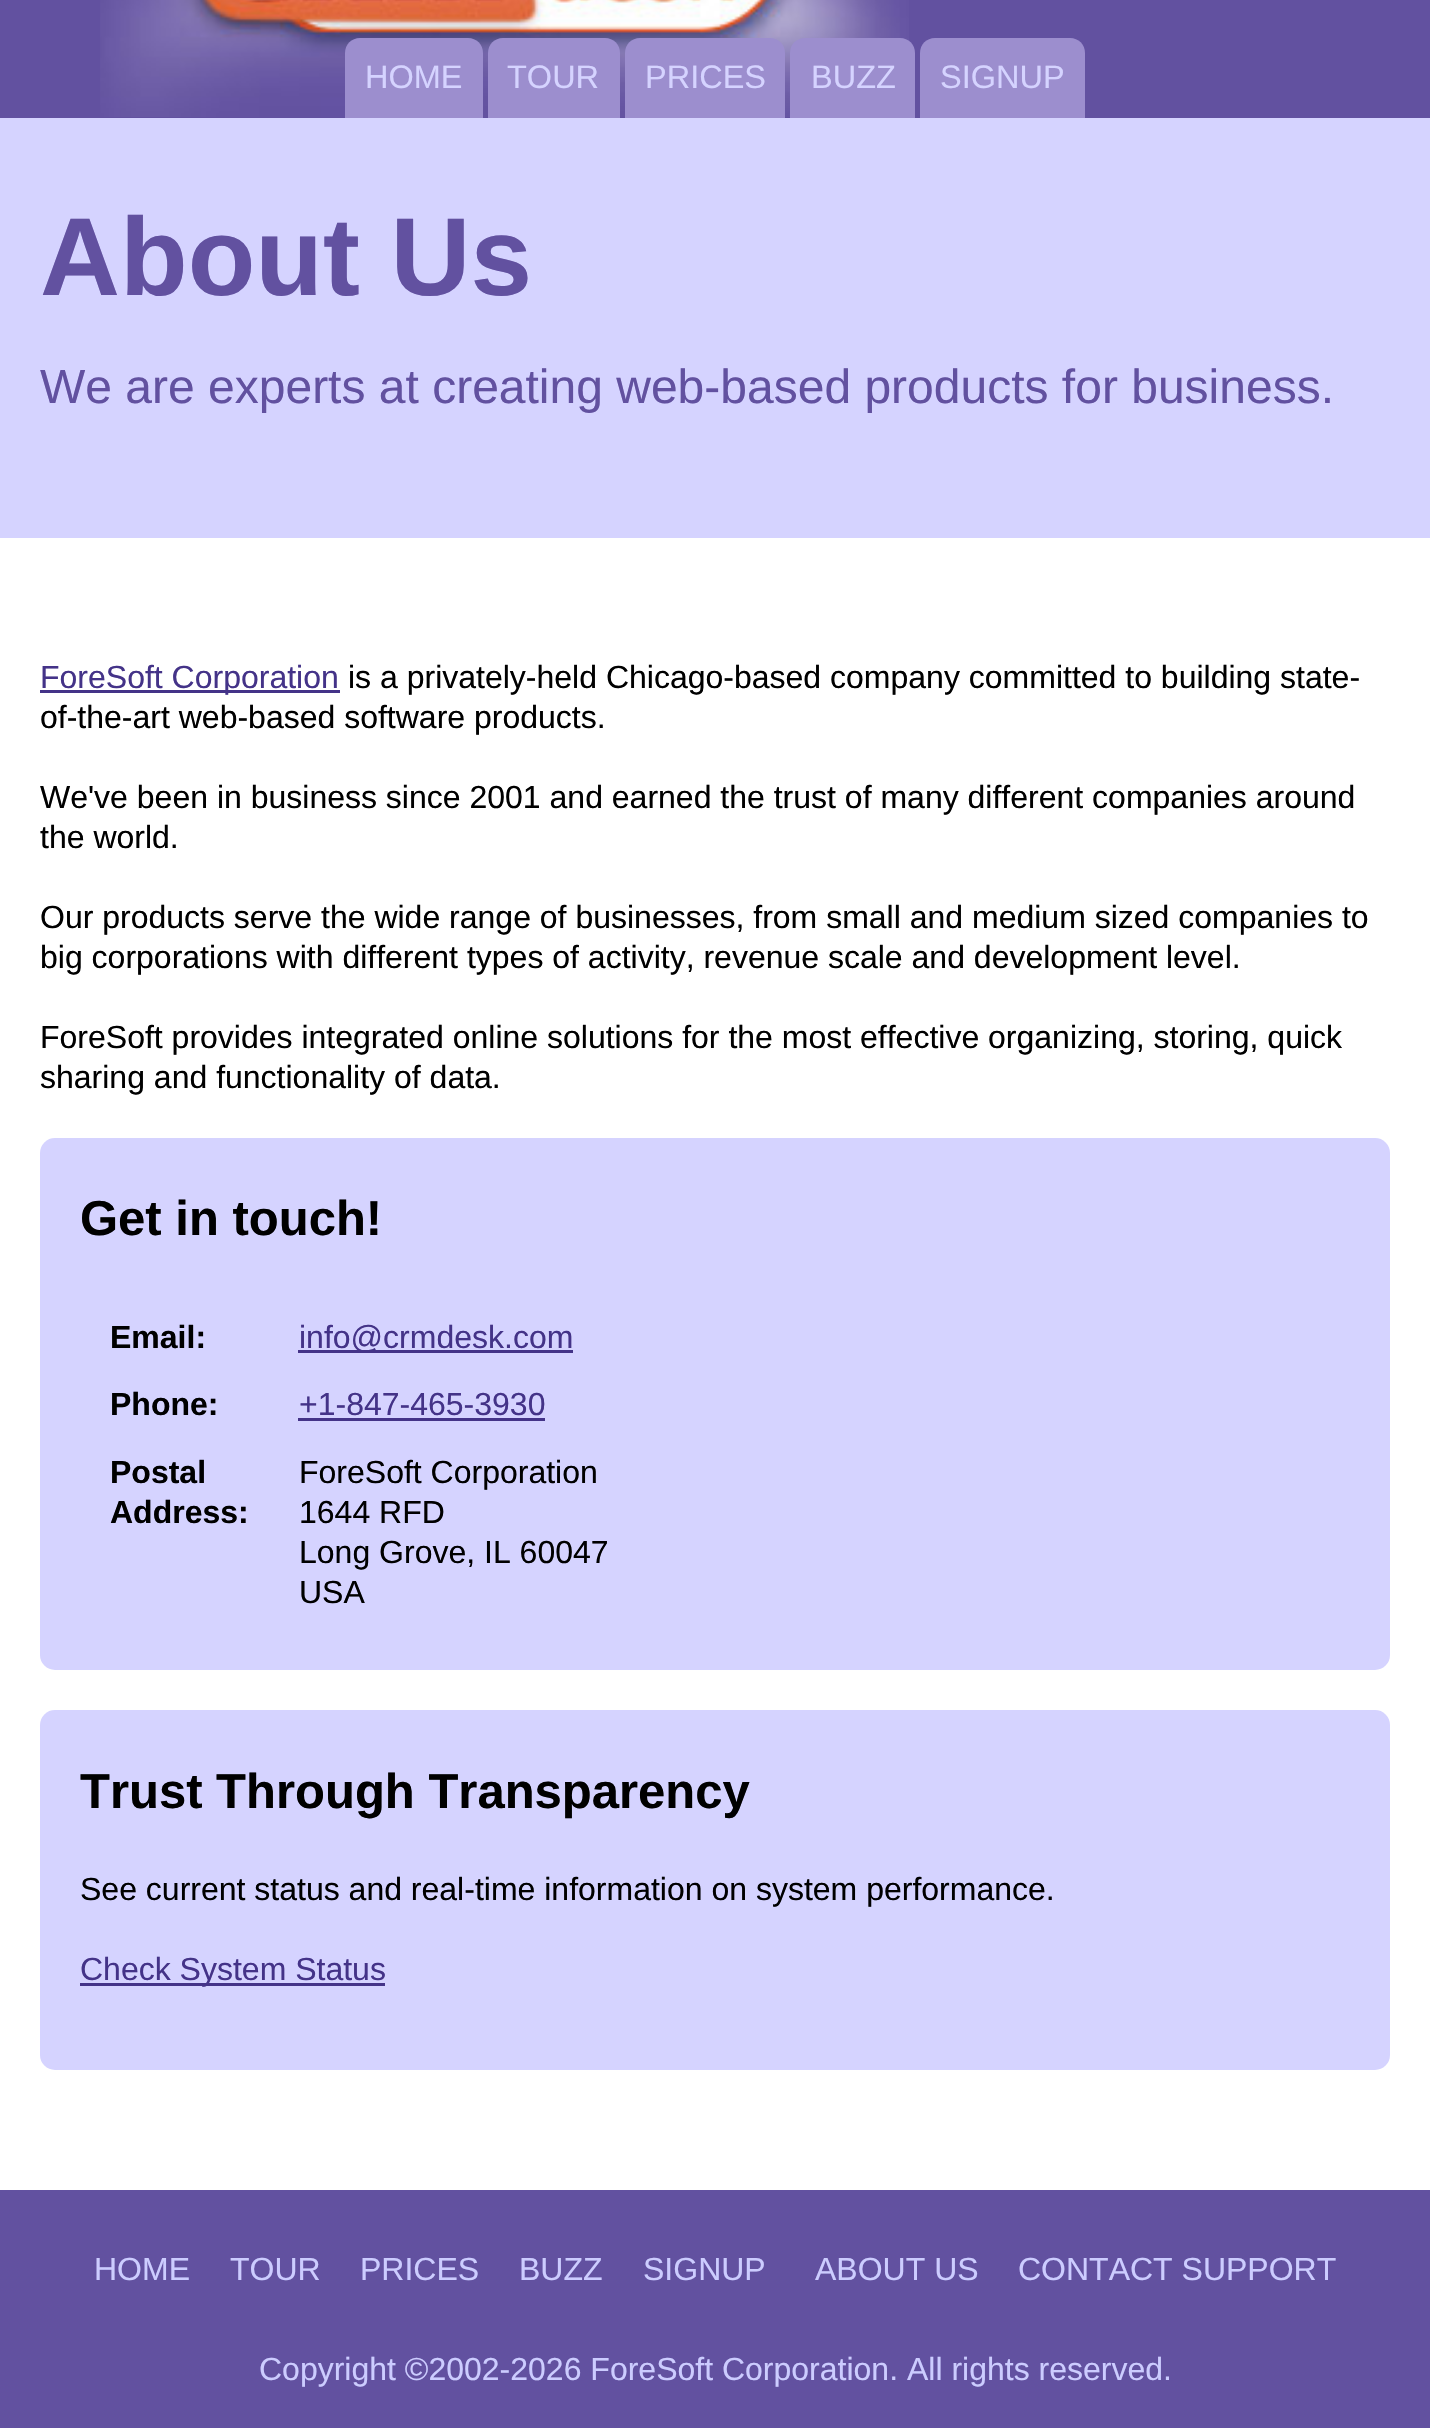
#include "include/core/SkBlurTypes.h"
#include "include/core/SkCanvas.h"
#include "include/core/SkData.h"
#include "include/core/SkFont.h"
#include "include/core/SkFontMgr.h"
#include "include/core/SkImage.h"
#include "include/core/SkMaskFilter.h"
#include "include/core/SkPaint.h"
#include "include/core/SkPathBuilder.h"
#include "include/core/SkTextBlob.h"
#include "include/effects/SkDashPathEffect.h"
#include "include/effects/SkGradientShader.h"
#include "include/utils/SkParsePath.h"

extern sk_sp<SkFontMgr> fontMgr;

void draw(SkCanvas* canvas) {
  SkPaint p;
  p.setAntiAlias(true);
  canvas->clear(SkColorSetRGB(98, 81, 160));
  canvas->drawImageRect(SkImages::DeferredFromEncodedData(SkData::MakeFromFileName("images/1.png")), SkRect::MakeLTRB(100, 0, 909, 117), SkSamplingOptions());
  p.setColor(SkColorSetRGB(156, 142, 206));
  canvas->drawPath(SkPathBuilder().moveTo(360, 38).lineTo(468, 38).cubicTo(476.5f, 38, 483, 44.5f, 483, 53).lineTo(483, 118).lineTo(345, 118).lineTo(345, 53).cubicTo(345, 44.5f, 351.5f, 38, 360, 38).close().detach(), p);
  canvas->drawPath(SkPathBuilder().moveTo(503, 38).lineTo(605, 38).cubicTo(613.5f, 38, 620, 44.5f, 620, 53).lineTo(620, 118).lineTo(488, 118).lineTo(488, 53).cubicTo(488, 44.5f, 494.5f, 38, 503, 38).close().detach(), p);
  canvas->drawPath(SkPathBuilder().moveTo(640, 38).lineTo(770, 38).cubicTo(778.5f, 38, 785, 44.5f, 785, 53).lineTo(785, 118).lineTo(625, 118).lineTo(625, 53).cubicTo(625, 44.5f, 631.5f, 38, 640, 38).close().detach(), p);
  canvas->drawPath(SkPathBuilder().moveTo(805, 38).lineTo(900, 38).cubicTo(908.5f, 38, 915, 44.5f, 915, 53).lineTo(915, 118).lineTo(790, 118).lineTo(790, 53).cubicTo(790, 44.5f, 796.5f, 38, 805, 38).close().detach(), p);
  canvas->drawPath(SkPathBuilder().moveTo(935, 38).lineTo(1070, 38).cubicTo(1078.5f, 38, 1085, 44.5f, 1085, 53).lineTo(1085, 118).lineTo(920, 118).lineTo(920, 53).cubicTo(920, 44.5f, 926.5f, 38, 935, 38).close().detach(), p);
  p.setColor(SkColorSetRGB(213, 211, 255));
  canvas->drawRect(SkRect::MakeLTRB(0, 118, 1430, 538), p);
  p.setColor(SK_ColorWHITE);
  canvas->drawRect(SkRect::MakeLTRB(0, 538, 1430, 2190), p);
  p.setColor(SkColorSetRGB(68, 51, 136));
  canvas->drawRect(SkRect::MakeLTRB(40, 690, 340, 693), p);
  p.setColor(SkColorSetRGB(213, 211, 255));
  canvas->drawRoundRect(SkRect::MakeLTRB(40, 1138, 1390, 1670), 15, 15, p);
  p.setColor(SkColorSetRGB(68, 51, 136));
  canvas->drawRect(SkRect::MakeLTRB(298, 1350, 573, 1353), p);
  canvas->drawRect(SkRect::MakeLTRB(298, 1418, 545, 1421), p);
  p.setColor(SkColorSetRGB(213, 211, 255));
  canvas->drawRoundRect(SkRect::MakeLTRB(40, 1710, 1390, 2070), 15, 15, p);
  p.setColor(SkColorSetRGB(68, 51, 136));
  canvas->drawRect(SkRect::MakeLTRB(80, 1983, 385, 1986), p);
  SkFont font1(fontMgr->matchFamilyStyle("Liberation Sans", SkFontStyle::Normal()), 32.5f);
  font1.setSubpixel(true);
  p.setColor(SkColorSetRGB(213, 211, 255));
  canvas->drawString("HOME", 365, 88, font1, p);
  canvas->drawString("TOUR", 507, 88, font1, p);
  canvas->drawString("PRICES", 645, 88, font1, p);
  canvas->drawString("BUZZ", 811, 88, font1, p);
  canvas->drawString("SIGNUP", 940, 88, font1, p);
  SkFont font2(fontMgr->matchFamilyStyle("Liberation Sans", SkFontStyle::Bold()), 110.75f);
  font2.setSubpixel(true);
  p.setColor(SkColorSetRGB(98, 81, 160));
  canvas->drawString("About Us", 40, 295, font2, p);
  SkFont font3(fontMgr->matchFamilyStyle("Liberation Sans", SkFontStyle::Normal()), 48);
  font3.setSubpixel(true);
  canvas->drawString("We are experts at creating web-based products for business.", 40, 403, font3, p);
  SkFont font4(fontMgr->matchFamilyStyle("Liberation Sans", SkFontStyle::Normal()), 32);
  font4.setSubpixel(true);
  p.setColor(SkColorSetRGB(68, 51, 136));
  canvas->drawString("ForeSoft Corporation", 40, 688, font4, p);
  p.setColor(SK_ColorBLACK);
  canvas->drawString("is a privately-held Chicago-based company committed to building state-", 348, 688, font4, p);
  canvas->drawString("of-the-art web-based software products.", 40, 728, font4, p);
  canvas->drawString("We've been in business since 2001 and earned the trust of many different companies around", 40, 808, font4, p);
  canvas->drawString("the world.", 40, 848, font4, p);
  canvas->drawString("Our products serve the wide range of businesses, from small and medium sized companies to", 40, 928, font4, p);
  canvas->drawString("big corporations with different types of activity, revenue scale and development level.", 40, 968, font4, p);
  canvas->drawString("ForeSoft provides integrated online solutions for the most effective organizing, storing, quick", 40, 1048, font4, p);
  canvas->drawString("sharing and functionality of data.", 40, 1088, font4, p);
  SkFont font5(fontMgr->matchFamilyStyle("Liberation Sans", SkFontStyle::Bold()), 49);
  font5.setSubpixel(true);
  canvas->drawString("Get in touch!", 80, 1235, font5, p);
  SkFont font6(fontMgr->matchFamilyStyle("Liberation Sans", SkFontStyle::Bold()), 32);
  font6.setSubpixel(true);
  canvas->drawString("Email:", 110, 1348, font6, p);
  p.setColor(SkColorSetRGB(68, 51, 136));
  canvas->drawString("info@crmdesk.com", 299, 1348, font4, p);
  p.setColor(SK_ColorBLACK);
  canvas->drawString("Phone:", 110, 1415, font6, p);
  p.setColor(SkColorSetRGB(68, 51, 136));
  canvas->drawString("+1-847-465-3930", 299, 1415, font4, p);
  p.setColor(SK_ColorBLACK);
  canvas->drawString("Postal", 110, 1483, font6, p);
  canvas->drawString("Address:", 110, 1523, font6, p);
  canvas->drawString("ForeSoft Corporation", 299, 1483, font4, p);
  canvas->drawString("1644 RFD", 299, 1523, font4, p);
  canvas->drawString("Long Grove, IL 60047", 299, 1563, font4, p);
  canvas->drawString("USA", 299, 1603, font4, p);
  canvas->drawString("Trust Through Transparency", 80, 1808, font5, p);
  canvas->drawString("See current status and real-time information on system performance.", 80, 1900, font4, p);
  p.setColor(SkColorSetRGB(68, 51, 136));
  canvas->drawString("Check System Status", 80, 1980, font4, p);
  p.setColor(SkColorSetRGB(204, 204, 255));
  canvas->drawString("HOME", 94, 2280, font4, p);
  canvas->drawString("TOUR", 230, 2280, font4, p);
  canvas->drawString("PRICES", 360, 2280, font4, p);
  canvas->drawString("BUZZ", 519, 2280, font4, p);
  canvas->drawString("SIGNUP", 643, 2280, font4, p);
  canvas->drawString("ABOUT US", 815, 2280, font4, p);
  canvas->drawString("CONTACT SUPPORT", 1018, 2280, font4, p);
  canvas->drawString("Copyright ©2002-2026 ForeSoft Corporation. All rights reserved.", 259, 2380, font4, p);
}
